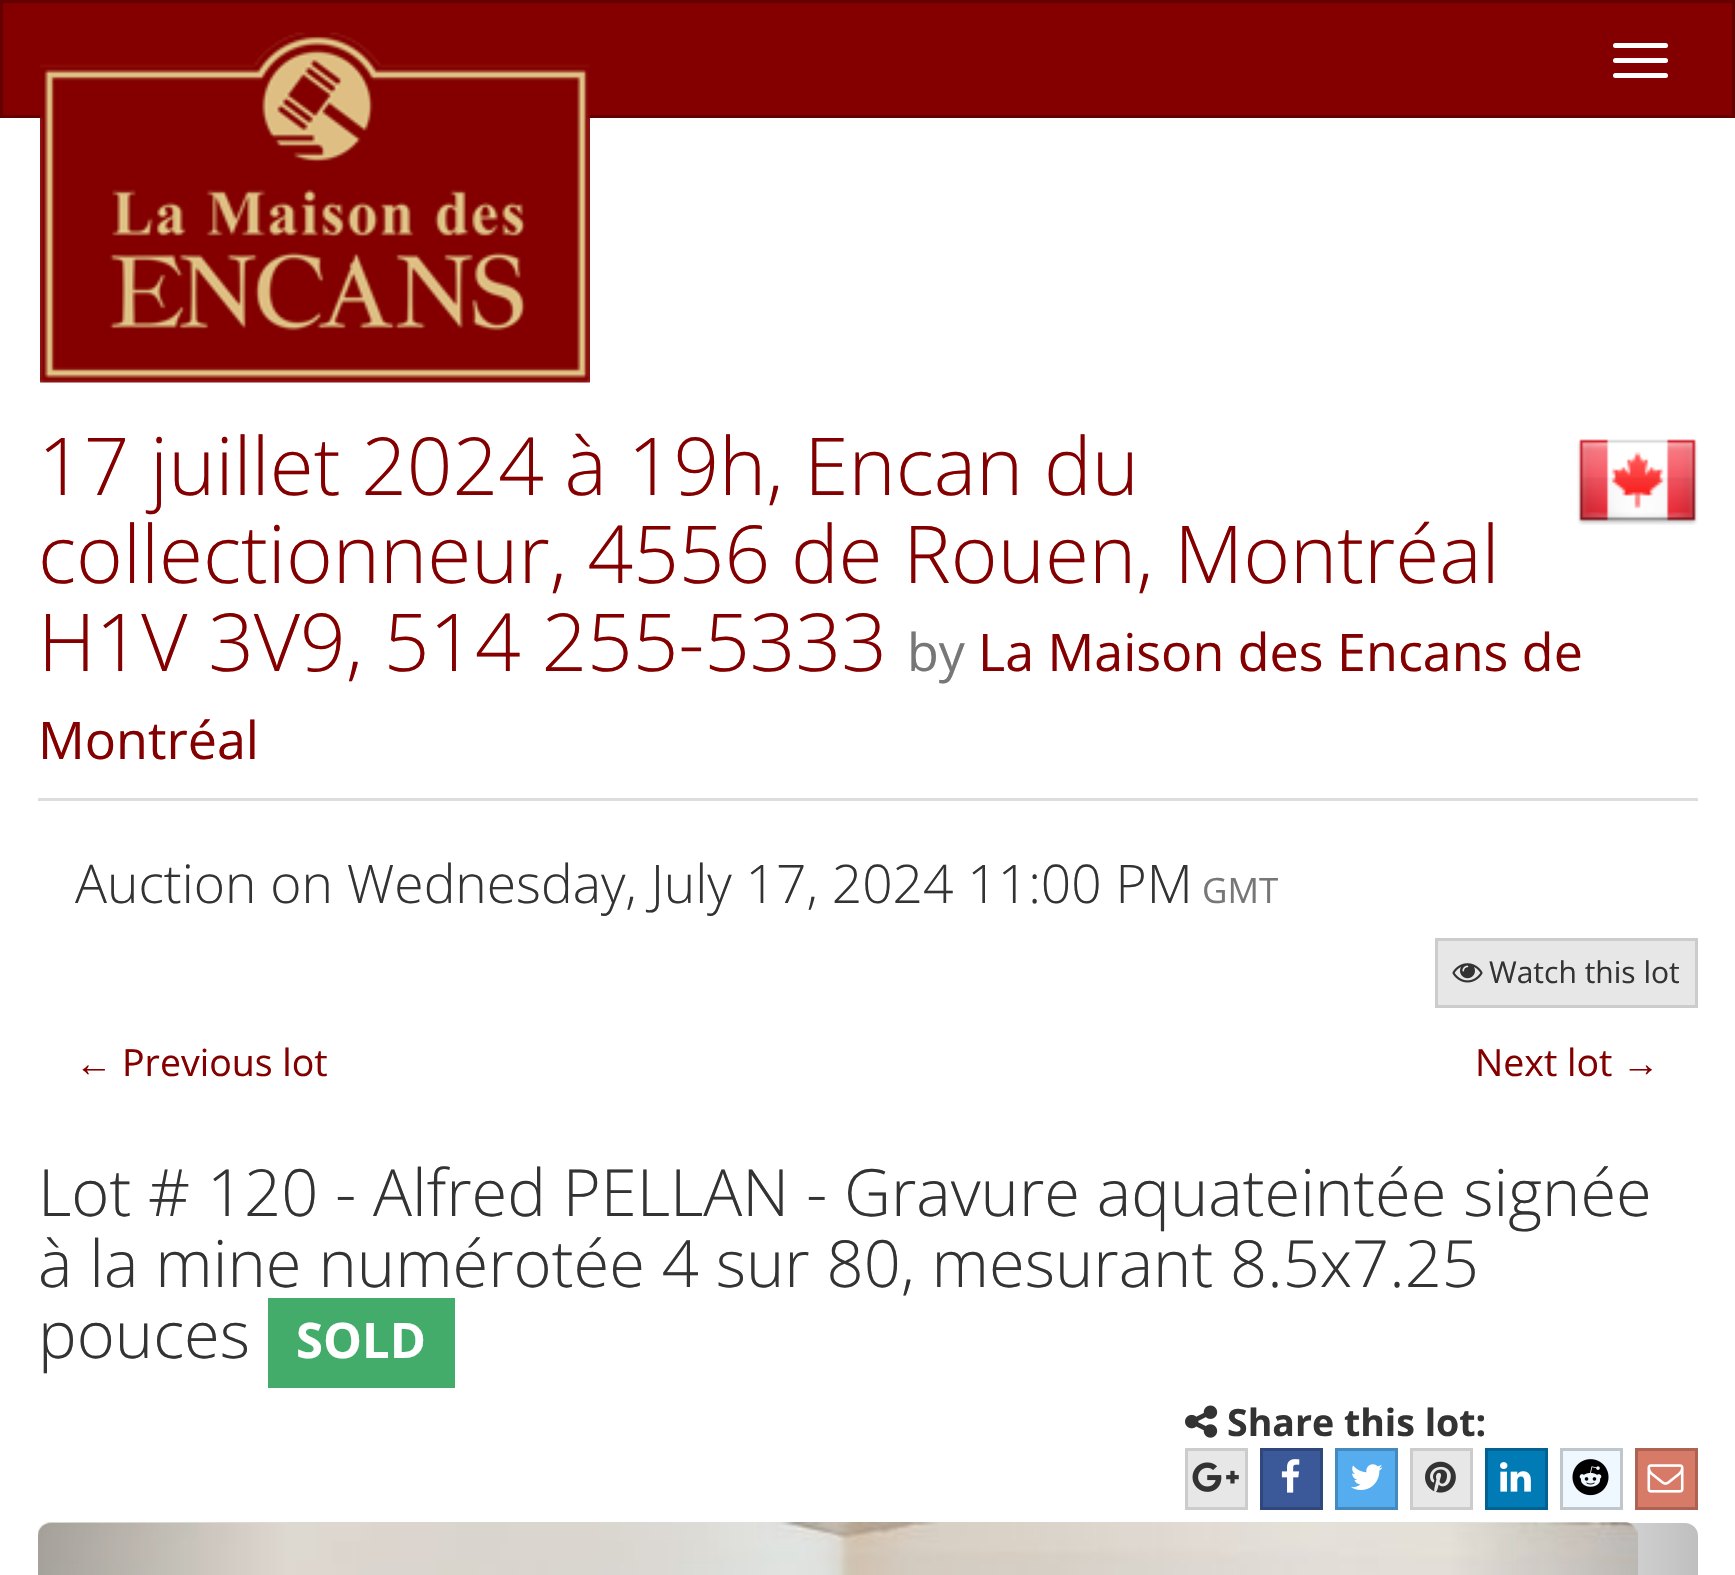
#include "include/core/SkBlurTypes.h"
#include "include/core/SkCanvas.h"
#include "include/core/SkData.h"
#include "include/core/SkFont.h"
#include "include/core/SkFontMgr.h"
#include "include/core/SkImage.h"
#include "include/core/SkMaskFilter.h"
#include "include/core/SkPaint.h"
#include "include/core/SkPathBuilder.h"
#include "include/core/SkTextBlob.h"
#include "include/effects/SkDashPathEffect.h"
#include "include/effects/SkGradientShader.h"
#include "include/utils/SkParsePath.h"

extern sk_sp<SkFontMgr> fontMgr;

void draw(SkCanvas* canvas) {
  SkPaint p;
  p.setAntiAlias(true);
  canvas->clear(SK_ColorWHITE);
  p.setColor(SkColorSetRGB(132, 0, 0));
  canvas->drawRect(SkRect::MakeLTRB(1.5f, 1.5f, 1733.5f, 116.5f), p);
  p.setStyle(SkPaint::kStroke_Style);
  p.setStrokeWidth(3);
  p.setColor(SkColorSetRGB(99, 0, 0));
  canvas->drawRect(SkRect::MakeLTRB(1.5f, 1.5f, 1733.5f, 116.5f), p);
  canvas->drawImageRect(SkImages::DeferredFromEncodedData(SkData::MakeFromFileName("images/1.png")), SkRect::MakeLTRB(40, 32, 590, 383), SkSamplingOptions());
  p.setStyle(SkPaint::kFill_Style);
  p.setColor(SK_ColorWHITE);
  canvas->drawRoundRect(SkRect::MakeLTRB(1613, 43, 1668, 48), 2.5f, 2.5f, p);
  canvas->drawRoundRect(SkRect::MakeLTRB(1613, 58, 1668, 63), 2.5f, 2.5f, p);
  canvas->drawRoundRect(SkRect::MakeLTRB(1613, 73, 1668, 78), 2.5f, 2.5f, p);
  p.setColor(SkColorSetRGB(221, 221, 221));
  canvas->drawRect(SkRect::MakeLTRB(38, 798, 1698, 801), p);
  canvas->drawImageRect(SkImages::DeferredFromEncodedData(SkData::MakeFromFileName("images/2.png")), SkRect::MakeLTRB(1577, 439, 1698, 525), SkSamplingOptions());
  p.setColor(SkColorSetRGB(231, 231, 231));
  canvas->drawRect(SkRect::MakeLTRB(1436.5f, 939.5f, 1696.5f, 1006.5f), p);
  p.setStyle(SkPaint::kStroke_Style);
  p.setColor(SkColorSetRGB(204, 204, 204));
  canvas->drawRect(SkRect::MakeLTRB(1436.5f, 939.5f, 1696.5f, 1006.5f), p);
  canvas->drawImageRect(SkImages::DeferredFromEncodedData(SkData::MakeFromFileName("images/3.png")), SkRect::MakeLTRB(1452, 963, 1483, 983), SkSamplingOptions());
  p.setStyle(SkPaint::kFill_Style);
  p.setColor(SkColorSetRGB(67, 172, 106));
  canvas->drawRect(SkRect::MakeLTRB(268, 1298, 455, 1388), p);
  canvas->drawImageRect(SkImages::DeferredFromEncodedData(SkData::MakeFromFileName("images/4.png")), SkRect::MakeLTRB(1185, 1405, 1218, 1438), SkSamplingOptions());
  p.setColor(SkColorSetRGB(231, 231, 231));
  canvas->drawRect(SkRect::MakeLTRB(1186.5f, 1449.5f, 1246.5f, 1508.5f), p);
  p.setStyle(SkPaint::kStroke_Style);
  p.setColor(SkColorSetRGB(204, 204, 204));
  canvas->drawRect(SkRect::MakeLTRB(1186.5f, 1449.5f, 1246.5f, 1508.5f), p);
  canvas->drawImageRect(SkImages::DeferredFromEncodedData(SkData::MakeFromFileName("images/5.png")), SkRect::MakeLTRB(1192, 1462, 1239, 1492), SkSamplingOptions());
  p.setStyle(SkPaint::kFill_Style);
  p.setColor(SkColorSetRGB(59, 89, 152));
  canvas->drawRect(SkRect::MakeLTRB(1261.5f, 1449.5f, 1321.5f, 1508.5f), p);
  p.setStyle(SkPaint::kStroke_Style);
  p.setColor(SkColorSetRGB(47, 71, 122));
  canvas->drawRect(SkRect::MakeLTRB(1261.5f, 1449.5f, 1321.5f, 1508.5f), p);
  canvas->drawImageRect(SkImages::DeferredFromEncodedData(SkData::MakeFromFileName("images/6.png")), SkRect::MakeLTRB(1281, 1459, 1300, 1493), SkSamplingOptions());
  p.setStyle(SkPaint::kFill_Style);
  p.setColor(SkColorSetRGB(85, 172, 238));
  canvas->drawRect(SkRect::MakeLTRB(1336.5f, 1449.5f, 1396.5f, 1508.5f), p);
  p.setStyle(SkPaint::kStroke_Style);
  p.setColor(SkColorSetRGB(68, 138, 190));
  canvas->drawRect(SkRect::MakeLTRB(1336.5f, 1449.5f, 1396.5f, 1508.5f), p);
  canvas->drawImageRect(SkImages::DeferredFromEncodedData(SkData::MakeFromFileName("images/7.png")), SkRect::MakeLTRB(1351, 1464, 1383, 1490), SkSamplingOptions());
  p.setStyle(SkPaint::kFill_Style);
  p.setColor(SkColorSetRGB(231, 231, 231));
  canvas->drawRect(SkRect::MakeLTRB(1411.5f, 1449.5f, 1471.5f, 1508.5f), p);
  p.setStyle(SkPaint::kStroke_Style);
  p.setColor(SkColorSetRGB(204, 204, 204));
  canvas->drawRect(SkRect::MakeLTRB(1411.5f, 1449.5f, 1471.5f, 1508.5f), p);
  canvas->drawImageRect(SkImages::DeferredFromEncodedData(SkData::MakeFromFileName("images/8.png")), SkRect::MakeLTRB(1425, 1461, 1456, 1493), SkSamplingOptions());
  p.setStyle(SkPaint::kFill_Style);
  p.setColor(SkColorSetRGB(0, 123, 182));
  canvas->drawRect(SkRect::MakeLTRB(1486.5f, 1449.5f, 1546.5f, 1508.5f), p);
  p.setStyle(SkPaint::kStroke_Style);
  p.setColor(SkColorSetRGB(0, 98, 146));
  canvas->drawRect(SkRect::MakeLTRB(1486.5f, 1449.5f, 1546.5f, 1508.5f), p);
  canvas->drawImageRect(SkImages::DeferredFromEncodedData(SkData::MakeFromFileName("images/9.png")), SkRect::MakeLTRB(1500, 1462, 1531, 1492), SkSamplingOptions());
  p.setStyle(SkPaint::kFill_Style);
  p.setColor(SkColorSetRGB(239, 247, 255));
  canvas->drawRect(SkRect::MakeLTRB(1561.5f, 1449.5f, 1621.5f, 1508.5f), p);
  p.setStyle(SkPaint::kStroke_Style);
  p.setColor(SkColorSetRGB(191, 198, 204));
  canvas->drawRect(SkRect::MakeLTRB(1561.5f, 1449.5f, 1621.5f, 1508.5f), p);
  canvas->drawImageRect(SkImages::DeferredFromEncodedData(SkData::MakeFromFileName("images/10.png")), SkRect::MakeLTRB(1572, 1459, 1609, 1496), SkSamplingOptions());
  p.setStyle(SkPaint::kFill_Style);
  p.setColor(SkColorSetRGB(216, 122, 104));
  canvas->drawRect(SkRect::MakeLTRB(1636.5f, 1449.5f, 1696.5f, 1508.5f), p);
  p.setStyle(SkPaint::kStroke_Style);
  p.setColor(SkColorSetRGB(173, 98, 83));
  canvas->drawRect(SkRect::MakeLTRB(1636.5f, 1449.5f, 1696.5f, 1508.5f), p);
  canvas->drawImageRect(SkImages::DeferredFromEncodedData(SkData::MakeFromFileName("images/11.png")), SkRect::MakeLTRB(1647, 1464, 1684, 1493), SkSamplingOptions());
  canvas->drawImageRect(SkImages::DeferredFromEncodedData(SkData::MakeFromFileName("images/12.png")), SkRect::MakeLTRB(38, 1522, 1638, 1575), SkSamplingOptions());
  p.setStyle(SkPaint::kFill_Style);
  {
    const SkColor colors[] = {SkColorSetARGB(64, 0, 0, 0), SkColorSetARGB(0, 0, 0, 0)};
    const float stops[] = {0, 1};
    const SkPoint ends[] = {{37, 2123}, {288, 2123}};
    p.setShader(SkGradientShader::MakeLinear(ends, colors, stops, 2, SkTileMode::kClamp));
    p.setAlpha(255);
  }
  canvas->drawRoundRect(SkRect::MakeLTRB(38, 1523, 288, 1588), 13, 13, p);
  {
    const SkColor colors[] = {SkColorSetARGB(0, 0, 0, 0), SkColorSetARGB(64, 0, 0, 0)};
    const float stops[] = {0, 1};
    const SkPoint ends[] = {{1448, 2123}, {1698, 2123}};
    p.setShader(SkGradientShader::MakeLinear(ends, colors, stops, 2, SkTileMode::kClamp));
    p.setAlpha(255);
  }
  canvas->drawRoundRect(SkRect::MakeLTRB(1448, 1523, 1698, 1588), 13, 13, p);
  SkFont font1(fontMgr->matchFamilyStyle("Open Sans", SkFontStyle(300, SkFontStyle::kNormal_Width, SkFontStyle::kUpright_Slant)), 80);
  font1.setSubpixel(true);
  p.setShader(nullptr);
  p.setColor(SkColorSetRGB(132, 0, 0));
  canvas->drawString("17 juillet 2024 à 19h, Encan du", 38, 495, font1, p);
  canvas->drawString("collectionneur, 4556 de Rouen, Montréal", 38, 583, font1, p);
  canvas->drawString("H1V 3V9, 514 255-5333", 38, 671, font1, p);
  SkFont font2(fontMgr->matchFamilyStyle("Open Sans", SkFontStyle::Normal()), 52);
  font2.setSubpixel(true);
  p.setColor(SkColorSetRGB(119, 119, 119));
  canvas->drawString("by", 907, 671, font2, p);
  p.setColor(SkColorSetRGB(132, 0, 0));
  canvas->drawString("La Maison des Encans de", 978, 671, font2, p);
  canvas->drawString("Montréal", 38, 759, font2, p);
  SkFont font3(fontMgr->matchFamilyStyle("Open Sans", SkFontStyle(300, SkFontStyle::kNormal_Width, SkFontStyle::kUpright_Slant)), 53.3f);
  font3.setSubpixel(true);
  p.setColor(SkColorSetRGB(51, 51, 51));
  canvas->drawString("Auction on Wednesday, July 17, 2024 11:00 PM", 75, 903, font3, p);
  SkFont font4(fontMgr->matchFamilyStyle("Open Sans", SkFontStyle::Normal()), 35);
  font4.setSubpixel(true);
  p.setColor(SkColorSetRGB(119, 119, 119));
  canvas->drawString("GMT", 1202, 903, font4, p);
  SkFont font5(fontMgr->matchFamilyStyle("Open Sans", SkFontStyle::Normal()), 30);
  font5.setSubpixel(true);
  p.setColor(SkColorSetRGB(51, 51, 51));
  canvas->drawString("Watch this lot", 1489, 983, font5, p);
  SkFont font6(fontMgr->matchFamilyStyle("Liberation Sans", SkFontStyle::Normal()), 37.5f);
  font6.setSubpixel(true);
  p.setColor(SkColorSetRGB(132, 0, 0));
  canvas->drawString("←", 75, 1076, font6, p);
  SkFont font7(fontMgr->matchFamilyStyle("Open Sans", SkFontStyle::Normal()), 37.5f);
  font7.setSubpixel(true);
  canvas->drawString("Previous lot", 122, 1076, font7, p);
  canvas->drawString("Next lot", 1475, 1076, font7, p);
  canvas->drawString("→", 1622, 1076, font6, p);
  SkFont font8(fontMgr->matchFamilyStyle("Open Sans", SkFontStyle(300, SkFontStyle::kNormal_Width, SkFontStyle::kUpright_Slant)), 65);
  font8.setSubpixel(true);
  p.setColor(SkColorSetRGB(51, 51, 51));
  canvas->drawString("Lot # 120 - Alfred PELLAN - Gravure aquateintée signée", 38, 1216, font8, p);
  canvas->drawString("à la mine numérotée 4 sur 80, mesurant 8.5x7.25", 38, 1287, font8, p);
  canvas->drawString("pouces", 38, 1358, font8, p);
  SkFont font9(fontMgr->matchFamilyStyle("Open Sans", SkFontStyle::Bold()), 49);
  font9.setSubpixel(true);
  p.setColor(SK_ColorWHITE);
  canvas->drawString("SOLD", 296, 1358, font9, p);
  SkFont font10(fontMgr->matchFamilyStyle("Open Sans", SkFontStyle::Bold()), 37.5f);
  font10.setSubpixel(true);
  p.setColor(SkColorSetRGB(51, 51, 51));
  canvas->drawString("Share this lot:", 1227, 1436, font10, p);
}
